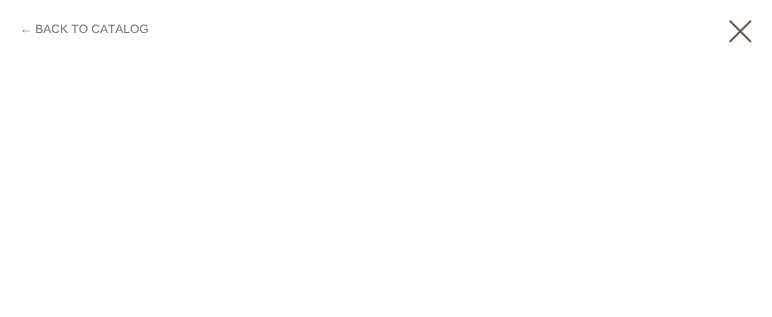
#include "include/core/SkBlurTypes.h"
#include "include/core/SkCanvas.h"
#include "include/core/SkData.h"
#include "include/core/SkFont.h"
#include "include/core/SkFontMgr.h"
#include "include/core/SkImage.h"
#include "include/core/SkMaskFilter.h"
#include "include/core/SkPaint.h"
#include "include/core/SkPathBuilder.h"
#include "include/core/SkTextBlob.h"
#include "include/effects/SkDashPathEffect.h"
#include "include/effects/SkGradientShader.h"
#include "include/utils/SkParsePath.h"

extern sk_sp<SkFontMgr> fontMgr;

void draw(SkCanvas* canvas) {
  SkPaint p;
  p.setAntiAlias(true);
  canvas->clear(SK_ColorWHITE);
  canvas->drawImageRect(SkImages::DeferredFromEncodedData(SkData::MakeFromFileName("images/1.png")), SkRect::MakeLTRB(729, 20, 752, 43), SkSamplingOptions());
  SkFont font1(fontMgr->matchFamilyStyle("Liberation Sans", SkFontStyle::Normal()), 12);
  font1.setSubpixel(true);
  p.setColor(SkColorSetRGB(129, 119, 110));
  canvas->drawString("← BACK TO CATALOG", 20, 33, font1, p);
}
